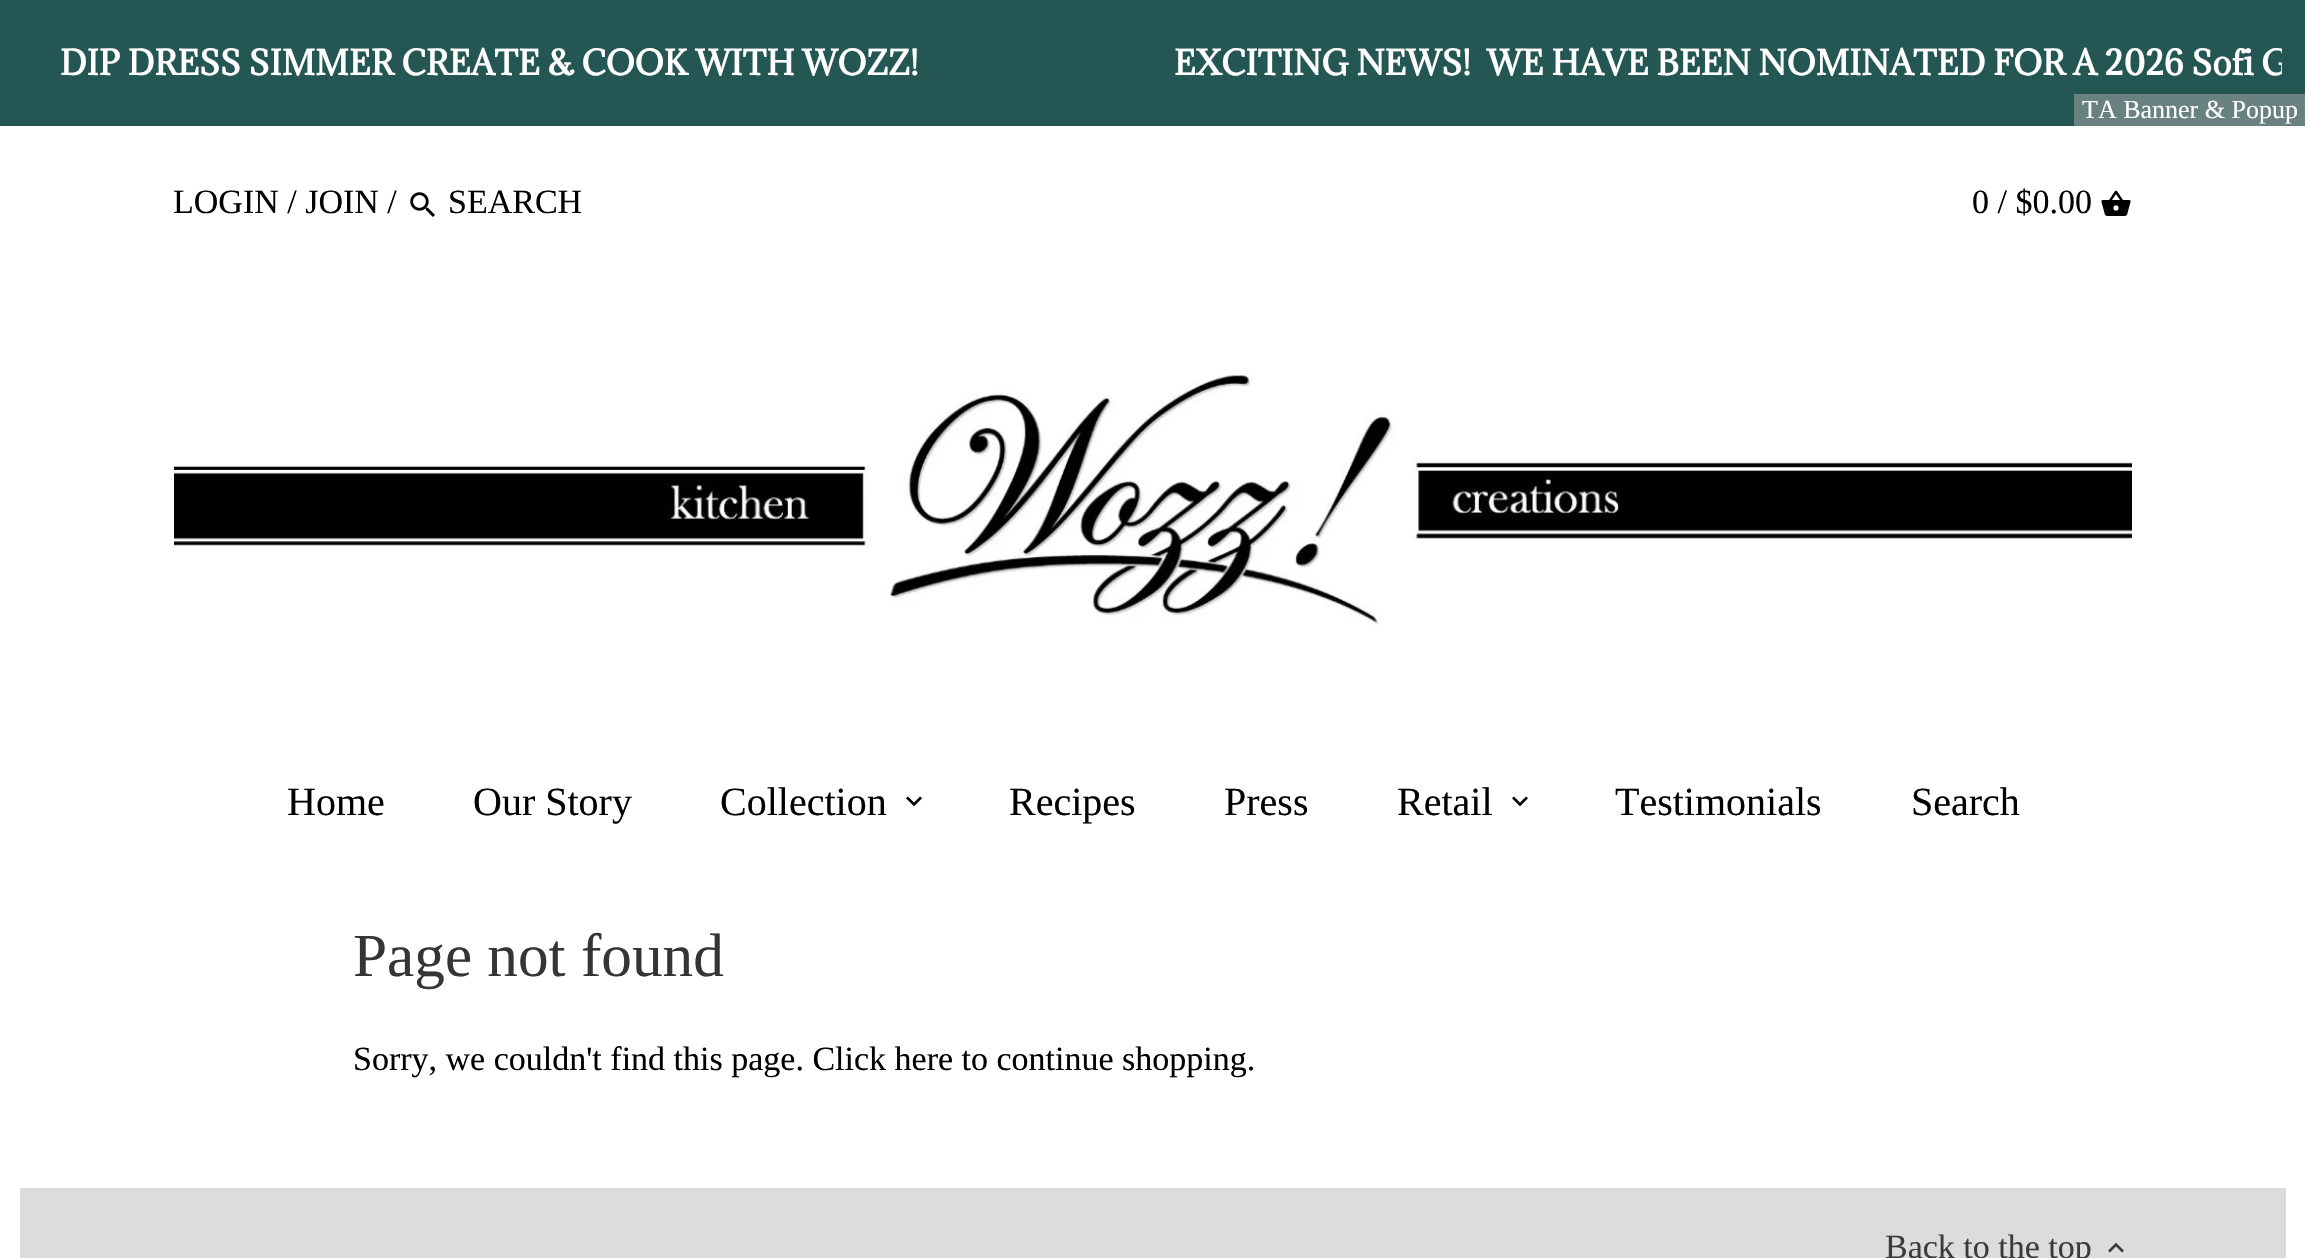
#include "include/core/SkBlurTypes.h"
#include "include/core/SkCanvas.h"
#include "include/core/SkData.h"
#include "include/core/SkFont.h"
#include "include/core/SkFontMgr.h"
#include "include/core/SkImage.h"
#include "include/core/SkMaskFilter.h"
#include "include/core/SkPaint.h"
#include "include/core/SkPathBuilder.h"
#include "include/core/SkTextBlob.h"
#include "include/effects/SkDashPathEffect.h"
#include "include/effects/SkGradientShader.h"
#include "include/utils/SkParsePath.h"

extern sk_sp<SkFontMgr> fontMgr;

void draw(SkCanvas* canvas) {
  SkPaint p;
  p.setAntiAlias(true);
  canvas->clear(SkColorSetRGB(220, 220, 220));
  p.setColor(SkColorSetRGB(36, 86, 84));
  canvas->drawRect(SkRect::MakeLTRB(0, 0, 2305, 126), p);
  p.setColor(SkColorSetRGB(105, 130, 129));
  canvas->drawRect(SkRect::MakeLTRB(2074, 94, 2305, 126), p);
  p.setStyle(SkPaint::kStroke_Style);
  p.setStrokeWidth(20);
  p.setColor(SK_ColorWHITE);
  canvas->drawRect(SkRect::MakeLTRB(10, 136, 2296, 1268), p);
  p.setStyle(SkPaint::kFill_Style);
  canvas->drawRect(SkRect::MakeLTRB(20, 146, 2286, 1188), p);
  canvas->drawImageRect(SkImages::DeferredFromEncodedData(SkData::MakeFromFileName("images/1.png")), SkRect::MakeLTRB(410, 192, 435, 217), SkSamplingOptions());
  canvas->drawImageRect(SkImages::DeferredFromEncodedData(SkData::MakeFromFileName("images/2.png")), SkRect::MakeLTRB(2101, 190, 2131, 216), SkSamplingOptions());
  canvas->drawImageRect(SkImages::DeferredFromEncodedData(SkData::MakeFromFileName("images/3.png")), SkRect::MakeLTRB(174, 375, 2132, 625), SkSamplingOptions());
  canvas->drawImageRect(SkImages::DeferredFromEncodedData(SkData::MakeFromFileName("images/4.png")), SkRect::MakeLTRB(906, 796, 922, 807), SkSamplingOptions());
  canvas->drawImageRect(SkImages::DeferredFromEncodedData(SkData::MakeFromFileName("images/4.png")), SkRect::MakeLTRB(1512, 796, 1528, 807), SkSamplingOptions());
  canvas->drawImageRect(SkImages::DeferredFromEncodedData(SkData::MakeFromFileName("images/5.png")), SkRect::MakeLTRB(2108, 1242, 2124, 1253), SkSamplingOptions());
  SkFont font1(fontMgr->matchFamilyStyle("Adamina", SkFontStyle::Bold()), 32);
  font1.setSubpixel(true);
  canvas->drawString("DIP DRESS SIMMER CREATE & COOK WITH WOZZ!", 60, 75, font1, p);
  canvas->save();
  canvas->clipRect(SkRect::MakeLTRB(24, 28, 2282, 98));
  canvas->drawString("EXCITING NEWS!  WE HAVE BEEN NOMINATED FOR A 2026 Sofi G", 1174, 75, font1, p);
  canvas->restore();
  SkFont font2(fontMgr->matchFamilyStyle("Liberation Serif", SkFontStyle::Normal()), 26);
  font2.setSubpixel(true);
  canvas->drawString("TA Banner & Popup", 2082, 118, font2, p);
  SkFont font3(fontMgr->matchFamilyStyle("Liberation Serif", SkFontStyle::Normal()), 34);
  font3.setSubpixel(true);
  p.setColor(SK_ColorBLACK);
  canvas->drawString("LOGIN / JOIN /", 173, 213, font3, p);
  canvas->drawString("SEARCH", 448, 213, font3, p);
  canvas->drawString("0 / $0.00", 1972, 213, font3, p);
  SkFont font4(fontMgr->matchFamilyStyle("Liberation Serif", SkFontStyle::Normal()), 40);
  font4.setSubpixel(true);
  canvas->drawString("Home", 287, 815, font4, p);
  canvas->drawString("Our Story", 473, 815, font4, p);
  canvas->drawString("Collection", 720, 815, font4, p);
  canvas->drawString("Recipes", 1009, 815, font4, p);
  canvas->drawString("Press", 1224, 815, font4, p);
  canvas->drawString("Retail", 1397, 815, font4, p);
  canvas->drawString("Testimonials", 1615, 815, font4, p);
  canvas->drawString("Search", 1911, 815, font4, p);
  SkFont font5(fontMgr->matchFamilyStyle("Liberation Serif", SkFontStyle::Normal()), 61.25f);
  font5.setSubpixel(true);
  p.setColor(SkColorSetRGB(53, 53, 53));
  canvas->drawString("Page not found", 353, 976, font5, p);
  p.setColor(SK_ColorBLACK);
  canvas->drawString("Sorry, we couldn't find this page. Click here to continue shopping.", 353, 1070, font3, p);
  p.setColor(SkColorSetRGB(59, 59, 59));
  canvas->drawString("Back to the top", 1885, 1258, font3, p);
}
